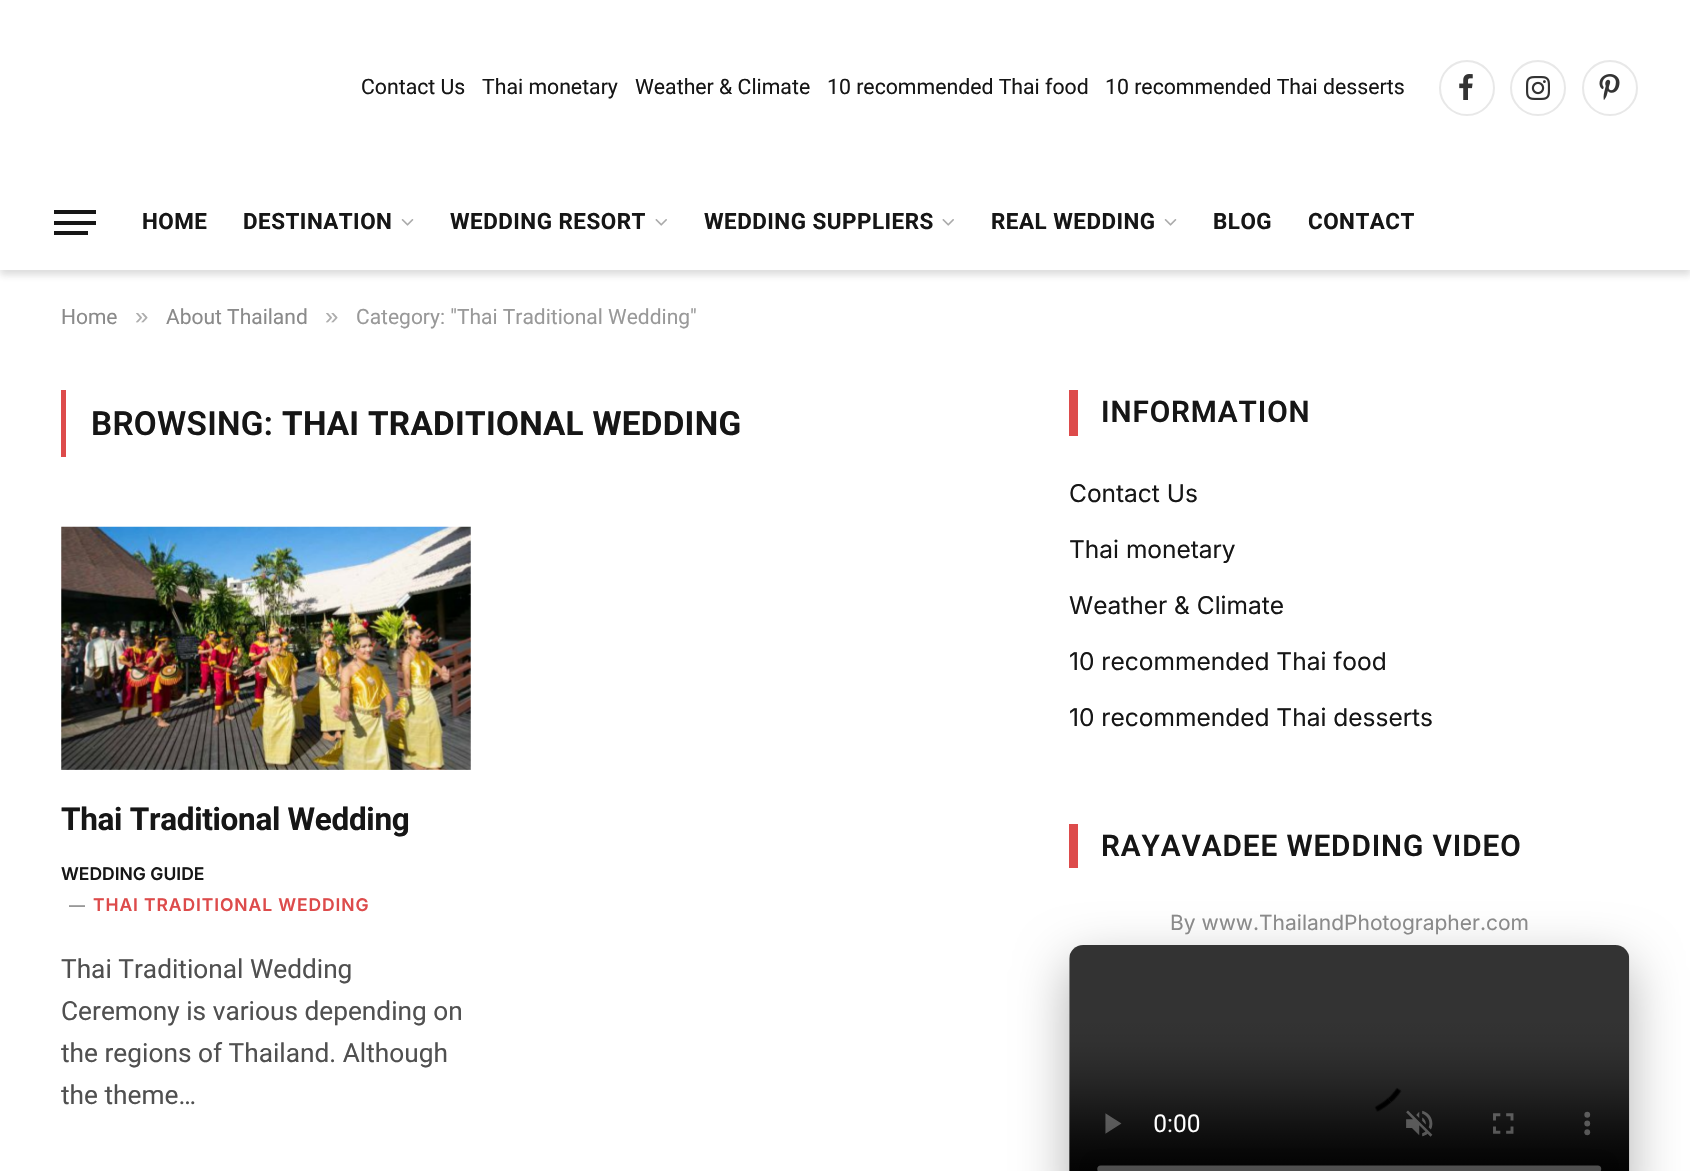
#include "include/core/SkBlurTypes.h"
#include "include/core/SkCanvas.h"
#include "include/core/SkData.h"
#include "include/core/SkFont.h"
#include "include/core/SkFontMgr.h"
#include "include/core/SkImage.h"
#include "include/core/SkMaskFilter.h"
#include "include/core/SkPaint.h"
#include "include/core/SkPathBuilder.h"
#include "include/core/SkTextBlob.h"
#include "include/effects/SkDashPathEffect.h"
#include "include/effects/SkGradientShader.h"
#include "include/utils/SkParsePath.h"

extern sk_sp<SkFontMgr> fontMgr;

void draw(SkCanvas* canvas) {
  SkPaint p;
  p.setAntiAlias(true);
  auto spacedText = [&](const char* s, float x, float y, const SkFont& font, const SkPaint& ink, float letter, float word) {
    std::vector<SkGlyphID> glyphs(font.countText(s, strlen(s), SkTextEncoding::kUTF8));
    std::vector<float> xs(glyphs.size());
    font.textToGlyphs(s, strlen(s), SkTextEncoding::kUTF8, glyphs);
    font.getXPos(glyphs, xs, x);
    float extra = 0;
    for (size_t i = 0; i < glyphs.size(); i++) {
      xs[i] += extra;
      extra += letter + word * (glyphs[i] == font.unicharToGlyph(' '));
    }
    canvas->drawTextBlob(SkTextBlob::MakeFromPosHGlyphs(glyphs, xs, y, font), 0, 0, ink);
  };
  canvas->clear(SK_ColorWHITE);
  canvas->save();
  canvas->clipPath(SkPathBuilder(SkPathFillType::kEvenOdd).moveTo(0, 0).lineTo(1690, 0).lineTo(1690, 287).lineTo(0, 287).close().moveTo(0, 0).lineTo(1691, 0).lineTo(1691, 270).lineTo(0, 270).close().detach(), true);
  p.setColor(SkColorSetARGB(41, 38, 38, 38));
  p.setMaskFilter(SkMaskFilter::MakeBlur(kNormal_SkBlurStyle, 3.5f));
  canvas->drawRect(SkRect::MakeLTRB(0, 5, 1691, 275), p);
  p.setMaskFilter(nullptr);
  canvas->restore();
  p.setStyle(SkPaint::kStroke_Style);
  p.setStrokeWidth(2);
  p.setColor(SkColorSetRGB(232, 232, 232));
  canvas->drawCircle(1467, 88, 27, p);
  canvas->drawImageRect(SkImages::DeferredFromEncodedData(SkData::MakeFromFileName("images/1.png")), SkRect::MakeLTRB(1459, 74, 1473, 100), SkSamplingOptions());
  canvas->drawCircle(1538, 88, 27, p);
  canvas->drawImageRect(SkImages::DeferredFromEncodedData(SkData::MakeFromFileName("images/2.png")), SkRect::MakeLTRB(1526, 76, 1550, 100), SkSamplingOptions());
  canvas->drawCircle(1610, 88, 27, p);
  canvas->drawImageRect(SkImages::DeferredFromEncodedData(SkData::MakeFromFileName("images/3.png")), SkRect::MakeLTRB(1599, 74, 1620, 100), SkSamplingOptions());
  p.setStyle(SkPaint::kFill_Style);
  p.setColor(SkColorSetRGB(22, 22, 22));
  canvas->drawRect(SkRect::MakeLTRB(54, 231, 88, 235), p);
  canvas->drawRect(SkRect::MakeLTRB(54, 210, 96, 214), p);
  canvas->drawRect(SkRect::MakeLTRB(54, 221, 96, 225), p);
  canvas->drawImageRect(SkImages::DeferredFromEncodedData(SkData::MakeFromFileName("images/4.png")), SkRect::MakeLTRB(401, 219, 414, 226), SkSamplingOptions());
  canvas->drawImageRect(SkImages::DeferredFromEncodedData(SkData::MakeFromFileName("images/5.png")), SkRect::MakeLTRB(655, 219, 667, 226), SkSamplingOptions());
  canvas->drawImageRect(SkImages::DeferredFromEncodedData(SkData::MakeFromFileName("images/5.png")), SkRect::MakeLTRB(942, 219, 954, 226), SkSamplingOptions());
  canvas->drawImageRect(SkImages::DeferredFromEncodedData(SkData::MakeFromFileName("images/4.png")), SkRect::MakeLTRB(1164, 219, 1177, 226), SkSamplingOptions());
  p.setColor(SkColorSetRGB(221, 75, 75));
  canvas->drawRect(SkRect::MakeLTRB(61, 390, 66, 457), p);
  canvas->drawImageRect(SkImages::DeferredFromEncodedData(SkData::MakeFromFileName("images/6.png")), SkRect::MakeLTRB(61, 526, 471, 770), SkSamplingOptions());
  canvas->drawRect(SkRect::MakeLTRB(1069, 390, 1078, 436), p);
  canvas->drawRect(SkRect::MakeLTRB(1069, 824, 1078, 868), p);
  p.setColor(SkColorSetARGB(77, 0, 0, 0));
  p.setMaskFilter(SkMaskFilter::MakeBlur(kNormal_SkBlurStyle, 26));
  canvas->drawRoundRect(SkRect::MakeLTRB(1069, 963, 1629, 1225), 14, 14, p);
  p.setMaskFilter(nullptr);
  canvas->drawImageRect(SkImages::DeferredFromEncodedData(SkData::MakeFromFileName("images/7.png")), SkRect::MakeLTRB(1069, 945, 1630, 1171), SkSamplingOptions());
  SkFont font1(fontMgr->matchFamilyStyle("Roboto", SkFontStyle::Normal()), 21.25f);
  font1.setSubpixel(true);
  p.setColor(SkColorSetRGB(22, 22, 22));
  canvas->drawString("Contact Us", 361, 94, font1, p);
  canvas->drawString("Thai monetary", 482, 94, font1, p);
  canvas->drawString("Weather & Climate", 635, 94, font1, p);
  canvas->drawString("10 recommended Thai food", 827, 94, font1, p);
  canvas->drawString("10 recommended Thai desserts", 1105, 94, font1, p);
  SkFont font2(fontMgr->matchFamilyStyle("Roboto", SkFontStyle::Bold()), 22.4f);
  font2.setSubpixel(true);
  spacedText("HOME", 142, 229, font2, p, 0.5f, 0);
  spacedText("DESTINATION", 243, 229, font2, p, 0.5f, 0);
  spacedText("WEDDING RESORT", 450, 229, font2, p, 0.5f, 0);
  spacedText("WEDDING SUPPLIERS", 704, 229, font2, p, 0.5f, 0);
  spacedText("REAL WEDDING", 991, 229, font2, p, 0.5f, 0);
  spacedText("BLOG", 1213, 229, font2, p, 0.5f, 0);
  spacedText("CONTACT", 1308, 229, font2, p, 0.5f, 0);
  SkFont font3(fontMgr->matchFamilyStyle("Roboto", SkFontStyle::Normal()), 21);
  font3.setSubpixel(true);
  p.setColor(SkColorSetRGB(138, 138, 138));
  canvas->drawString("Home", 61, 324, font3, p);
  SkFont font4(fontMgr->matchFamilyStyle("Liberation Sans", SkFontStyle::Normal()), 24);
  font4.setSubpixel(true);
  p.setColor(SkColorSetRGB(173, 173, 173));
  canvas->drawString("»", 135, 324, font4, p);
  p.setColor(SkColorSetRGB(138, 138, 138));
  canvas->drawString("About Thailand", 166, 324, font3, p);
  p.setColor(SkColorSetRGB(173, 173, 173));
  canvas->drawString("»", 325, 324, font4, p);
  p.setColor(SkColorSetRGB(153, 153, 153));
  canvas->drawString("Category: \"Thai Traditional Wedding\"", 356, 324, font3, p);
  SkFont font5(fontMgr->matchFamilyStyle("Roboto", SkFontStyle(600, SkFontStyle::kNormal_Width, SkFontStyle::kUpright_Slant)), 33.25f);
  font5.setSubpixel(true);
  p.setColor(SkColorSetRGB(22, 22, 22));
  spacedText("BROWSING:", 91, 435, font5, p, 0.3f, 0);
  SkFont font6(fontMgr->matchFamilyStyle("Roboto", SkFontStyle::Bold()), 33.25f);
  font6.setSubpixel(true);
  spacedText("THAI TRADITIONAL WEDDING", 282, 435, font6, p, 0.3f, 0);
  SkFont font7(fontMgr->matchFamilyStyle("Roboto", SkFontStyle::Bold()), 31.5f);
  font7.setSubpixel(true);
  spacedText("Thai Traditional Wedding", 61, 830, font7, p, -0.3f, 0);
  SkFont font8(fontMgr->matchFamilyStyle("Inter", SkFontStyle(600, SkFontStyle::kNormal_Width, SkFontStyle::kUpright_Slant)), 17.5f);
  font8.setSubpixel(true);
  canvas->drawString("WEDDING GUIDE", 61, 880, font8, p);
  SkFont font9(fontMgr->matchFamilyStyle("Inter", SkFontStyle(500, SkFontStyle::kNormal_Width, SkFontStyle::kUpright_Slant)), 16);
  font9.setSubpixel(true);
  p.setColor(SkColorSetRGB(138, 138, 138));
  canvas->drawString("—", 69, 911, font9, p);
  p.setColor(SkColorSetRGB(221, 75, 75));
  spacedText("THAI TRADITIONAL WEDDING", 93, 911, font8, p, 0.9f, 0);
  SkFont font10(fontMgr->matchFamilyStyle("Roboto", SkFontStyle::Normal()), 26.25f);
  font10.setSubpixel(true);
  p.setColor(SkColorSetRGB(80, 80, 80));
  canvas->drawString("Thai Traditional Wedding", 61, 978, font10, p);
  canvas->drawString("Ceremony is various depending on", 61, 1020, font10, p);
  canvas->drawString("the regions of Thailand. Although", 61, 1062, font10, p);
  canvas->drawString("the theme…", 61, 1104, font10, p);
  SkFont font11(fontMgr->matchFamilyStyle("Roboto", SkFontStyle(600, SkFontStyle::kNormal_Width, SkFontStyle::kUpright_Slant)), 29.75f);
  font11.setSubpixel(true);
  p.setColor(SkColorSetRGB(22, 22, 22));
  spacedText("INFORMATION", 1101, 422, font11, p, 0.9f, 0);
  SkFont font12(fontMgr->matchFamilyStyle("Inter", SkFontStyle::Normal()), 24.5f);
  font12.setSubpixel(true);
  canvas->drawString("Contact Us", 1069, 502, font12, p);
  canvas->drawString("Thai monetary", 1069, 558, font12, p);
  canvas->drawString("Weather & Climate", 1069, 614, font12, p);
  canvas->drawString("10 recommended Thai food", 1069, 670, font12, p);
  canvas->drawString("10 recommended Thai desserts", 1069, 726, font12, p);
  spacedText("RAYAVADEE WEDDING VIDEO", 1101, 856, font11, p, 0.9f, 0);
  SkFont font13(fontMgr->matchFamilyStyle("Inter", SkFontStyle::Normal()), 21);
  font13.setSubpixel(true);
  p.setColor(SkColorSetRGB(138, 138, 138));
  canvas->drawString("By www.ThailandPhotographer.com", 1170, 930, font13, p);
}
